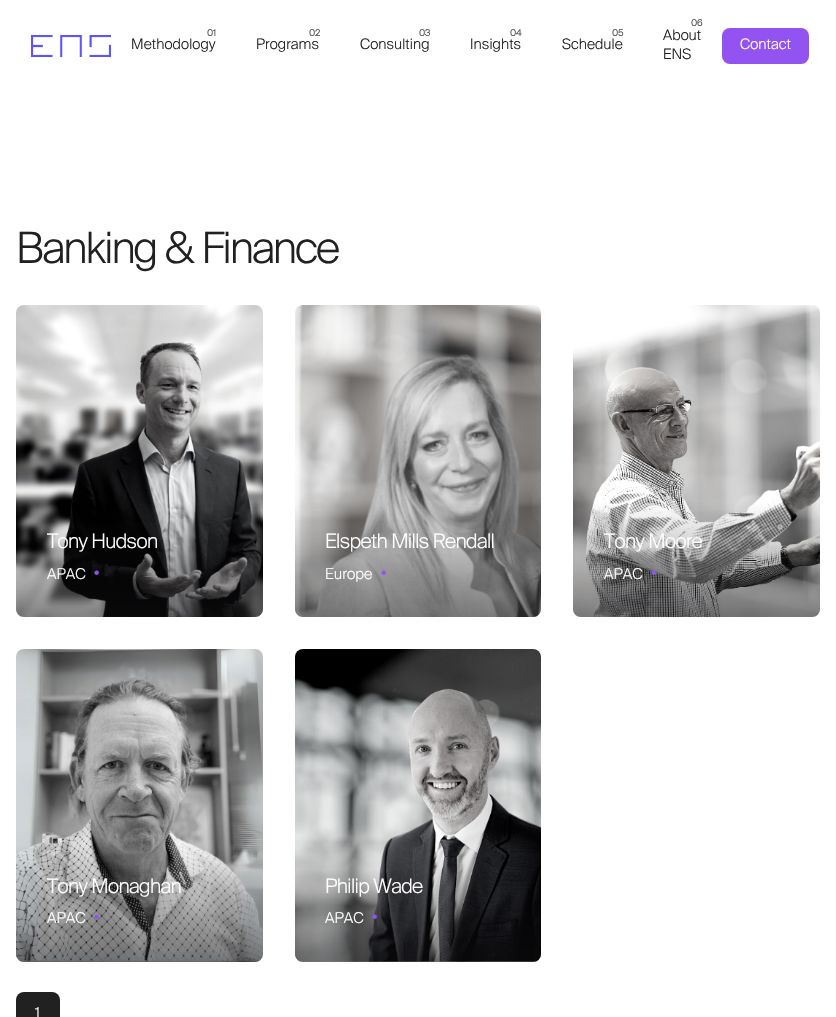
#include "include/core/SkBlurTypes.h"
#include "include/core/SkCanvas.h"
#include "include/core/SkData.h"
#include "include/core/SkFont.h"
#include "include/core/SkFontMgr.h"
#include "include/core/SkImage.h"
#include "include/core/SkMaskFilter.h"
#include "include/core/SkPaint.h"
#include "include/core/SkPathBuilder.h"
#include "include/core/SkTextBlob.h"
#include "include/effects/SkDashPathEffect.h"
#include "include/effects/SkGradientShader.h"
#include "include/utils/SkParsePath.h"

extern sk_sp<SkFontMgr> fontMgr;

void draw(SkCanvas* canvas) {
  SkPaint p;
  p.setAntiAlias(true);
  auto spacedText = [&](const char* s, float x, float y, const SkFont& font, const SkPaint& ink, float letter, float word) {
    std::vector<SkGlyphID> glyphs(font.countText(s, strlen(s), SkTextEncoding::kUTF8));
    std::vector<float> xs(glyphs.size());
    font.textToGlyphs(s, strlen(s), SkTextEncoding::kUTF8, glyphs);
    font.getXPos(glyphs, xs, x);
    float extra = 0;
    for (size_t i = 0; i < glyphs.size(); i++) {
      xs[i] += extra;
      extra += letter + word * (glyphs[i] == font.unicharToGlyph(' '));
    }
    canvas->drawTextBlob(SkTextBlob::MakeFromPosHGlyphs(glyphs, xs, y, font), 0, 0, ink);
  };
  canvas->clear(SK_ColorWHITE);
  canvas->drawImageRect(SkImages::DeferredFromEncodedData(SkData::MakeFromFileName("images/1.png")), SkRect::MakeLTRB(31, 35, 111, 57), SkSamplingOptions());
  p.setColor(SkColorSetRGB(146, 83, 241));
  canvas->drawRoundRect(SkRect::MakeLTRB(722, 28, 809, 64), 8, 8, p);
  canvas->drawImageRect(SkImages::DeferredFromEncodedData(SkData::MakeFromFileName("images/2.png")), SkRect::MakeLTRB(16, 305, 263, 617), SkSamplingOptions());
  {
    const SkColor colors[] = {SkColorSetARGB(128, 17, 16, 19), SkColorSetARGB(0, 17, 16, 19)};
    const float stops[] = {0, 1};
    const SkPoint ends[] = {{140, 617}, {140, 502}};
    p.setShader(SkGradientShader::MakeLinear(ends, colors, stops, 2, SkTileMode::kClamp));
    p.setAlpha(255);
  }
  canvas->drawPath(SkPathBuilder().moveTo(16, 502).lineTo(263, 502).lineTo(263, 609).cubicTo(263, 613.5f, 259.5f, 617, 255, 617).lineTo(24, 617).cubicTo(19.5f, 617, 16, 613.5f, 16, 609).close().detach(), p);
  canvas->drawImageRect(SkImages::DeferredFromEncodedData(SkData::MakeFromFileName("images/3.png")), SkRect::MakeLTRB(295, 305, 541, 617), SkSamplingOptions());
  {
    const SkColor colors[] = {SkColorSetARGB(128, 17, 16, 19), SkColorSetARGB(0, 17, 16, 19)};
    const float stops[] = {0, 1};
    const SkPoint ends[] = {{418, 617}, {418, 502}};
    p.setShader(SkGradientShader::MakeLinear(ends, colors, stops, 2, SkTileMode::kClamp));
    p.setAlpha(255);
  }
  canvas->drawPath(SkPathBuilder().moveTo(295, 502).lineTo(541, 502).lineTo(541, 609).cubicTo(541, 613.5f, 537.5f, 617, 533, 617).lineTo(303, 617).cubicTo(298.5f, 617, 295, 613.5f, 295, 609).close().detach(), p);
  canvas->drawImageRect(SkImages::DeferredFromEncodedData(SkData::MakeFromFileName("images/4.png")), SkRect::MakeLTRB(573, 305, 820, 617), SkSamplingOptions());
  {
    const SkColor colors[] = {SkColorSetARGB(128, 17, 16, 19), SkColorSetARGB(0, 17, 16, 19)};
    const float stops[] = {0, 1};
    const SkPoint ends[] = {{697, 617}, {697, 502}};
    p.setShader(SkGradientShader::MakeLinear(ends, colors, stops, 2, SkTileMode::kClamp));
    p.setAlpha(255);
  }
  canvas->drawPath(SkPathBuilder().moveTo(573, 502).lineTo(820, 502).lineTo(820, 609).cubicTo(820, 613.5f, 816.5f, 617, 812, 617).lineTo(581, 617).cubicTo(576.5f, 617, 573, 613.5f, 573, 609).close().detach(), p);
  canvas->drawImageRect(SkImages::DeferredFromEncodedData(SkData::MakeFromFileName("images/5.png")), SkRect::MakeLTRB(16, 649, 263, 962), SkSamplingOptions());
  {
    const SkColor colors[] = {SkColorSetARGB(128, 17, 16, 19), SkColorSetARGB(0, 17, 16, 19)};
    const float stops[] = {0, 1};
    const SkPoint ends[] = {{140, 962}, {140, 846}};
    p.setShader(SkGradientShader::MakeLinear(ends, colors, stops, 2, SkTileMode::kClamp));
    p.setAlpha(255);
  }
  canvas->drawPath(SkPathBuilder().moveTo(16, 846).lineTo(263, 846).lineTo(263, 954).cubicTo(263, 958.5f, 259.5f, 962, 255, 962).lineTo(24, 962).cubicTo(19.5f, 962, 16, 958.5f, 16, 954).close().detach(), p);
  canvas->drawImageRect(SkImages::DeferredFromEncodedData(SkData::MakeFromFileName("images/6.png")), SkRect::MakeLTRB(295, 649, 541, 962), SkSamplingOptions());
  {
    const SkColor colors[] = {SkColorSetARGB(128, 17, 16, 19), SkColorSetARGB(0, 17, 16, 19)};
    const float stops[] = {0, 1};
    const SkPoint ends[] = {{418, 962}, {418, 846}};
    p.setShader(SkGradientShader::MakeLinear(ends, colors, stops, 2, SkTileMode::kClamp));
    p.setAlpha(255);
  }
  canvas->drawPath(SkPathBuilder().moveTo(295, 846).lineTo(541, 846).lineTo(541, 954).cubicTo(541, 958.5f, 537.5f, 962, 533, 962).lineTo(303, 962).cubicTo(298.5f, 962, 295, 958.5f, 295, 954).close().detach(), p);
  p.setShader(nullptr);
  p.setColor(SkColorSetRGB(33, 33, 33));
  canvas->drawRoundRect(SkRect::MakeLTRB(16, 992, 60, 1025), 8, 8, p);
  SkFont font1(fontMgr->matchFamilyStyle("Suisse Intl", SkFontStyle::Bold()), 9);
  font1.setSubpixel(true);
  p.setColor(SkColorSetRGB(89, 89, 89));
  spacedText("01", 207, 36, font1, p, 0.1f, 0);
  SkFont font2(fontMgr->matchFamilyStyle("Suisse Intl", SkFontStyle(300, SkFontStyle::kNormal_Width, SkFontStyle::kUpright_Slant)), 14.5f);
  font2.setSubpixel(true);
  p.setColor(SkColorSetRGB(33, 33, 33));
  spacedText("Methodology", 131, 49, font2, p, 0.1f, 0);
  p.setColor(SkColorSetRGB(89, 89, 89));
  spacedText("02", 309, 36, font1, p, 0.1f, 0);
  p.setColor(SkColorSetRGB(33, 33, 33));
  spacedText("Programs", 256, 49, font2, p, 0.1f, 0);
  p.setColor(SkColorSetRGB(89, 89, 89));
  spacedText("03", 419, 36, font1, p, 0.1f, 0);
  p.setColor(SkColorSetRGB(33, 33, 33));
  spacedText("Consulting", 360, 49, font2, p, 0.1f, 0);
  p.setColor(SkColorSetRGB(89, 89, 89));
  spacedText("04", 510, 36, font1, p, 0.1f, 0);
  p.setColor(SkColorSetRGB(33, 33, 33));
  spacedText("Insights", 470, 49, font2, p, 0.1f, 0);
  p.setColor(SkColorSetRGB(89, 89, 89));
  spacedText("05", 612, 36, font1, p, 0.1f, 0);
  p.setColor(SkColorSetRGB(33, 33, 33));
  spacedText("Schedule", 562, 49, font2, p, 0.1f, 0);
  p.setColor(SkColorSetRGB(89, 89, 89));
  spacedText("06", 691, 26, font1, p, 0.1f, 0);
  p.setColor(SkColorSetRGB(33, 33, 33));
  spacedText("About", 663, 40, font2, p, 0.1f, 0);
  spacedText("ENS", 663, 59, font2, p, 0.1f, 0);
  p.setColor(SK_ColorWHITE);
  spacedText("Contact", 740, 49, font2, p, 0.1f, 0);
  SkFont font3(fontMgr->matchFamilyStyle("Suisse Intl", SkFontStyle(300, SkFontStyle::kNormal_Width, SkFontStyle::kUpright_Slant)), 43.25f);
  font3.setSubpixel(true);
  p.setColor(SkColorSetRGB(33, 33, 33));
  spacedText("Banking & Finance", 16, 263, font3, p, -1.9f, 0);
  SkFont font4(fontMgr->matchFamilyStyle("Suisse Intl", SkFontStyle(300, SkFontStyle::kNormal_Width, SkFontStyle::kUpright_Slant)), 20);
  font4.setSubpixel(true);
  p.setColor(SK_ColorWHITE);
  spacedText("Tony Hudson", 47, 548, font4, p, -0.6f, 0);
  SkFont font5(fontMgr->matchFamilyStyle("Suisse Intl", SkFontStyle(300, SkFontStyle::kNormal_Width, SkFontStyle::kUpright_Slant)), 15);
  font5.setSubpixel(true);
  spacedText("APAC", 47, 579, font5, p, 0.1f, 0);
  SkFont font6(fontMgr->matchFamilyStyle("Suisse Intl", SkFontStyle(300, SkFontStyle::kNormal_Width, SkFontStyle::kUpright_Slant)), 12);
  font6.setSubpixel(true);
  p.setColor(SkColorSetRGB(146, 83, 241));
  spacedText("•", 94, 576, font6, p, 0.1f, 0);
  p.setColor(SK_ColorWHITE);
  spacedText("Elspeth Mills Rendall", 325, 548, font4, p, -0.6f, 0);
  spacedText("Europe", 325, 579, font5, p, 0.1f, 0);
  p.setColor(SkColorSetRGB(146, 83, 241));
  spacedText("•", 381, 576, font6, p, 0.1f, 0);
  p.setColor(SK_ColorWHITE);
  spacedText("Tony Moore", 604, 548, font4, p, -0.6f, 0);
  spacedText("APAC", 604, 579, font5, p, 0.1f, 0);
  p.setColor(SkColorSetRGB(146, 83, 241));
  spacedText("•", 651, 576, font6, p, 0.1f, 0);
  p.setColor(SK_ColorWHITE);
  spacedText("Tony Monaghan", 47, 893, font4, p, -0.6f, 0);
  spacedText("APAC", 47, 923, font5, p, 0.1f, 0);
  p.setColor(SkColorSetRGB(146, 83, 241));
  spacedText("•", 94, 920, font6, p, 0.1f, 0);
  p.setColor(SK_ColorWHITE);
  spacedText("Philip Wade", 325, 893, font4, p, -0.6f, 0);
  spacedText("APAC", 325, 923, font5, p, 0.1f, 0);
  p.setColor(SkColorSetRGB(146, 83, 241));
  spacedText("•", 372, 920, font6, p, 0.1f, 0);
  p.setColor(SK_ColorWHITE);
  spacedText("1", 35, 1018, font5, p, 0.1f, 0);
}
